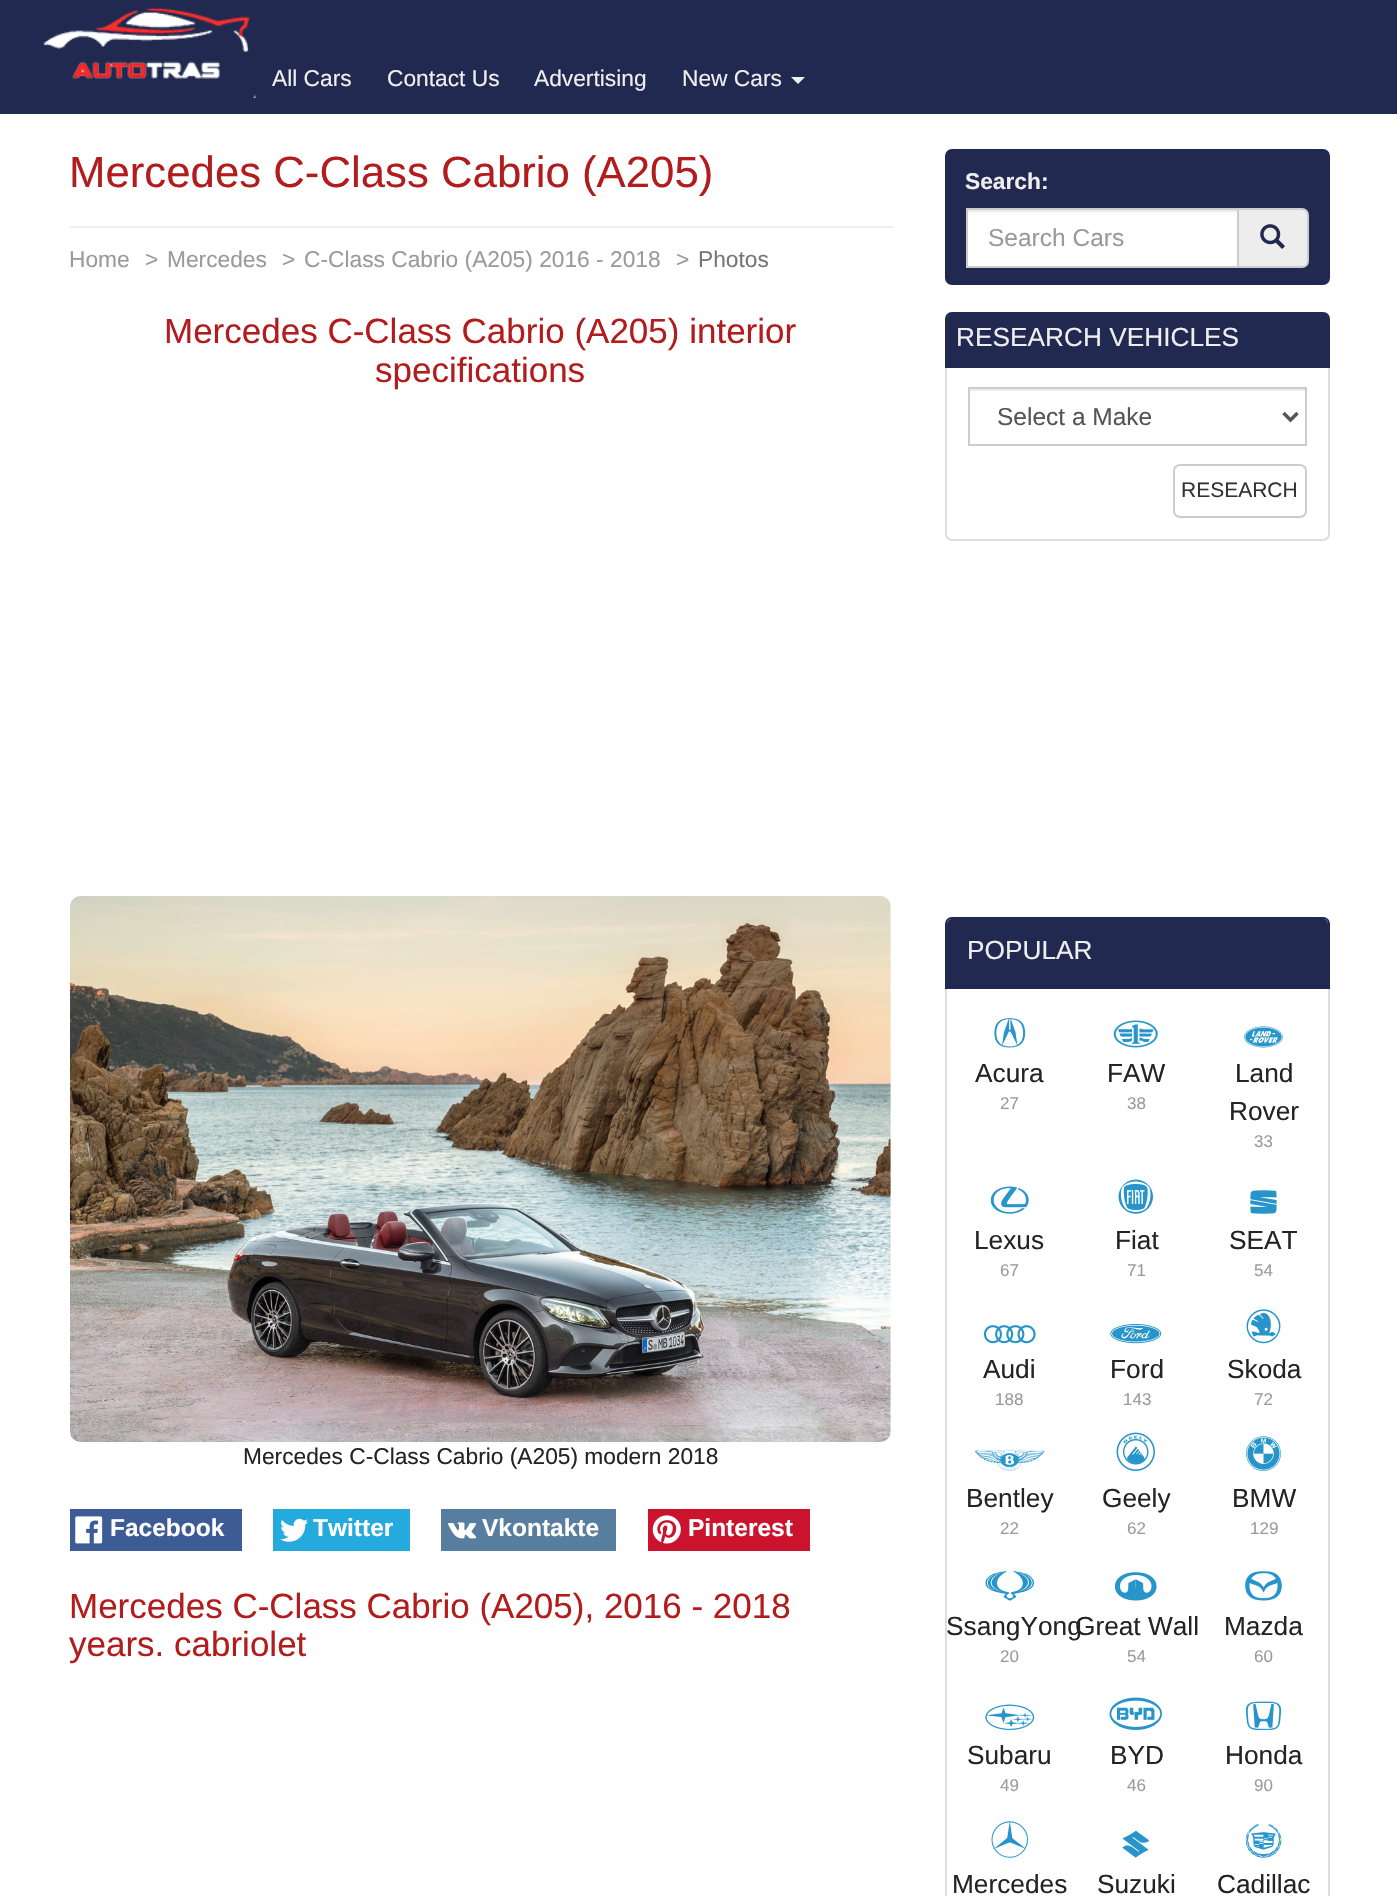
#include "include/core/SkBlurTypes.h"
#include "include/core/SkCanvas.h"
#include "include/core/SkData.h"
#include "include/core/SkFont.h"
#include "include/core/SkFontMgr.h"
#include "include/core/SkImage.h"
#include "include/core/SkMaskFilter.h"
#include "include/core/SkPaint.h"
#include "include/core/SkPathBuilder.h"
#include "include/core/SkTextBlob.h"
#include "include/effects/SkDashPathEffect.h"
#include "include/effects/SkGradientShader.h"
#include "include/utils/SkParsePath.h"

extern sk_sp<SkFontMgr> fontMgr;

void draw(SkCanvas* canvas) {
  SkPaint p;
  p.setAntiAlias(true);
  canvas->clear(SK_ColorWHITE);
  p.setColor(SkColorSetRGB(33, 41, 80));
  canvas->drawRect(SkRect::MakeLTRB(0, 0, 1397, 114), p);
  canvas->drawImageRect(SkImages::DeferredFromEncodedData(SkData::MakeFromFileName("images/1.png")), SkRect::MakeLTRB(43, 8, 256, 98), SkSamplingOptions());
  p.setColor(SkColorSetRGB(238, 238, 238));
  canvas->drawPath(SkPathBuilder().moveTo(791, 77).lineTo(805, 77).lineTo(798, 84).close().detach(), p);
  p.setColor(SkColorSetRGB(239, 239, 239));
  canvas->drawRect(SkRect::MakeLTRB(70, 226, 893, 228), p);
  canvas->drawImageRect(SkImages::DeferredFromEncodedData(SkData::MakeFromFileName("images/2.png")), SkRect::MakeLTRB(70, 896, 891, 1442), SkSamplingOptions());
  p.setColor(SkColorSetRGB(61, 91, 149));
  canvas->drawRect(SkRect::MakeLTRB(70, 1509, 242, 1551), p);
  canvas->drawImageRect(SkImages::DeferredFromEncodedData(SkData::MakeFromFileName("images/3.png")), SkRect::MakeLTRB(75, 1516, 103, 1544), SkSamplingOptions());
  p.setColor(SkColorSetRGB(36, 170, 221));
  canvas->drawRect(SkRect::MakeLTRB(273, 1509, 410, 1551), p);
  canvas->drawImageRect(SkImages::DeferredFromEncodedData(SkData::MakeFromFileName("images/4.png")), SkRect::MakeLTRB(280, 1518, 308, 1542), SkSamplingOptions());
  p.setColor(SkColorSetRGB(88, 126, 159));
  canvas->drawRect(SkRect::MakeLTRB(441, 1509, 616, 1551), p);
  canvas->drawImageRect(SkImages::DeferredFromEncodedData(SkData::MakeFromFileName("images/5.png")), SkRect::MakeLTRB(448, 1522, 477, 1539), SkSamplingOptions());
  p.setColor(SkColorSetRGB(203, 19, 45));
  canvas->drawRect(SkRect::MakeLTRB(648, 1509, 810, 1551), p);
  canvas->drawImageRect(SkImages::DeferredFromEncodedData(SkData::MakeFromFileName("images/6.png")), SkRect::MakeLTRB(652, 1515, 681, 1544), SkSamplingOptions());
  p.setColor(SkColorSetRGB(33, 41, 80));
  canvas->drawRoundRect(SkRect::MakeLTRB(945, 149, 1330, 285), 7, 7, p);
  p.setColor(SK_ColorWHITE);
  canvas->drawRect(SkRect::MakeLTRB(968, 212, 1237, 266), p);
  p.setColor(SkColorSetRGB(236, 236, 236));
  canvas->drawRect(SkRect::MakeLTRB(968, 210, 1237, 212), p);
  p.setStyle(SkPaint::kStroke_Style);
  p.setStrokeWidth(2);
  p.setColor(SkColorSetRGB(204, 204, 204));
  canvas->drawRect(SkRect::MakeLTRB(967, 209, 1238, 267), p);
  p.setStyle(SkPaint::kFill_Style);
  p.setColor(SkColorSetRGB(237, 237, 237));
  canvas->drawPath(SkPathBuilder().moveTo(1238, 209).lineTo(1302, 209).cubicTo(1305.5f, 209, 1308, 211.5f, 1308, 215).lineTo(1308, 261).cubicTo(1308, 264.5f, 1305.5f, 267, 1302, 267).lineTo(1238, 267).close().detach(), p);
  p.setStyle(SkPaint::kStroke_Style);
  p.setColor(SkColorSetRGB(204, 204, 204));
  canvas->drawPath(SkPathBuilder().moveTo(1238, 209).lineTo(1302, 209).cubicTo(1305.5f, 209, 1308, 211.5f, 1308, 215).lineTo(1308, 261).cubicTo(1308, 264.5f, 1305.5f, 267, 1302, 267).lineTo(1238, 267).close().detach(), p);
  canvas->drawImageRect(SkImages::DeferredFromEncodedData(SkData::MakeFromFileName("images/7.png")), SkRect::MakeLTRB(1260, 224, 1285, 249), SkSamplingOptions());
  p.setColor(SkColorSetRGB(221, 221, 221));
  canvas->drawRoundRect(SkRect::MakeLTRB(946, 313, 1329, 540), 6, 6, p);
  p.setColor(SkColorSetRGB(33, 41, 80));
  canvas->drawPath(SkPathBuilder().moveTo(952, 313).lineTo(1323, 313).cubicTo(1326.5f, 313, 1329, 315.5f, 1329, 319).lineTo(1329, 367).lineTo(946, 367).lineTo(946, 319).cubicTo(946, 315.5f, 948.5f, 313, 952, 313).close().detach(), p);
  p.setStyle(SkPaint::kFill_Style);
  canvas->drawPath(SkPathBuilder().moveTo(952, 313).lineTo(1323, 313).cubicTo(1326, 313, 1328, 315, 1328, 318).lineTo(1328, 366).lineTo(947, 366).lineTo(947, 318).cubicTo(947, 315, 949, 313, 952, 313).close().detach(), p);
  p.setColor(SkColorSetRGB(236, 236, 236));
  canvas->drawRect(SkRect::MakeLTRB(970, 389, 1306, 391), p);
  p.setStyle(SkPaint::kStroke_Style);
  p.setColor(SkColorSetRGB(204, 204, 204));
  canvas->drawRect(SkRect::MakeLTRB(969, 388, 1306, 445), p);
  p.setStrokeWidth(3.5f);
  p.setColor(SkColorSetRGB(85, 85, 85));
  canvas->drawPath(SkPathBuilder().moveTo(1283.5f, 413).lineTo(1290.5f, 420).lineTo(1297.5f, 413).detach(), p);
  p.setStrokeWidth(2);
  p.setColor(SkColorSetRGB(204, 204, 204));
  canvas->drawRoundRect(SkRect::MakeLTRB(1174, 465, 1306, 517), 6, 6, p);
  p.setColor(SkColorSetRGB(221, 221, 221));
  canvas->drawRoundRect(SkRect::MakeLTRB(946, 918, 1329, 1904), 6, 6, p);
  p.setColor(SkColorSetRGB(33, 41, 80));
  canvas->drawPath(SkPathBuilder().moveTo(952, 918).lineTo(1323, 918).cubicTo(1326.5f, 918, 1329, 920.5f, 1329, 924).lineTo(1329, 988).lineTo(946, 988).lineTo(946, 924).cubicTo(946, 920.5f, 948.5f, 918, 952, 918).close().detach(), p);
  p.setStyle(SkPaint::kFill_Style);
  canvas->drawPath(SkPathBuilder().moveTo(952, 919).lineTo(1323, 919).cubicTo(1326, 919, 1328, 921, 1328, 924).lineTo(1328, 987).lineTo(947, 987).lineTo(947, 924).cubicTo(947, 921, 949, 919, 952, 919).close().detach(), p);
  canvas->drawImageRect(SkImages::DeferredFromEncodedData(SkData::MakeFromFileName("images/8.png")), SkRect::MakeLTRB(994, 1018, 1026, 1048), SkSamplingOptions());
  canvas->drawImageRect(SkImages::DeferredFromEncodedData(SkData::MakeFromFileName("images/9.png")), SkRect::MakeLTRB(1113, 1020, 1158, 1048), SkSamplingOptions());
  canvas->drawImageRect(SkImages::DeferredFromEncodedData(SkData::MakeFromFileName("images/10.png")), SkRect::MakeLTRB(1244, 1026, 1283, 1048), SkSamplingOptions());
  canvas->drawImageRect(SkImages::DeferredFromEncodedData(SkData::MakeFromFileName("images/11.png")), SkRect::MakeLTRB(990, 1186, 1029, 1214), SkSamplingOptions());
  canvas->drawImageRect(SkImages::DeferredFromEncodedData(SkData::MakeFromFileName("images/12.png")), SkRect::MakeLTRB(1118, 1179, 1153, 1214), SkSamplingOptions());
  canvas->drawImageRect(SkImages::DeferredFromEncodedData(SkData::MakeFromFileName("images/13.png")), SkRect::MakeLTRB(1250, 1190, 1277, 1214), SkSamplingOptions());
  canvas->drawImageRect(SkImages::DeferredFromEncodedData(SkData::MakeFromFileName("images/14.png")), SkRect::MakeLTRB(983, 1325, 1036, 1344), SkSamplingOptions());
  canvas->drawImageRect(SkImages::DeferredFromEncodedData(SkData::MakeFromFileName("images/15.png")), SkRect::MakeLTRB(1110, 1324, 1162, 1344), SkSamplingOptions());
  canvas->drawImageRect(SkImages::DeferredFromEncodedData(SkData::MakeFromFileName("images/16.png")), SkRect::MakeLTRB(1246, 1309, 1281, 1344), SkSamplingOptions());
  canvas->drawImageRect(SkImages::DeferredFromEncodedData(SkData::MakeFromFileName("images/17.png")), SkRect::MakeLTRB(975, 1449, 1045, 1471), SkSamplingOptions());
  canvas->drawImageRect(SkImages::DeferredFromEncodedData(SkData::MakeFromFileName("images/18.png")), SkRect::MakeLTRB(1116, 1432, 1155, 1471), SkSamplingOptions());
  canvas->drawImageRect(SkImages::DeferredFromEncodedData(SkData::MakeFromFileName("images/19.png")), SkRect::MakeLTRB(1246, 1436, 1281, 1471), SkSamplingOptions());
  canvas->drawImageRect(SkImages::DeferredFromEncodedData(SkData::MakeFromFileName("images/20.png")), SkRect::MakeLTRB(985, 1570, 1035, 1601), SkSamplingOptions());
  canvas->drawImageRect(SkImages::DeferredFromEncodedData(SkData::MakeFromFileName("images/21.png")), SkRect::MakeLTRB(1114, 1572, 1157, 1601), SkSamplingOptions());
  canvas->drawImageRect(SkImages::DeferredFromEncodedData(SkData::MakeFromFileName("images/22.png")), SkRect::MakeLTRB(1245, 1571, 1282, 1601), SkSamplingOptions());
  canvas->drawImageRect(SkImages::DeferredFromEncodedData(SkData::MakeFromFileName("images/23.png")), SkRect::MakeLTRB(985, 1704, 1035, 1730), SkSamplingOptions());
  canvas->drawImageRect(SkImages::DeferredFromEncodedData(SkData::MakeFromFileName("images/24.png")), SkRect::MakeLTRB(1109, 1697, 1162, 1730), SkSamplingOptions());
  canvas->drawImageRect(SkImages::DeferredFromEncodedData(SkData::MakeFromFileName("images/25.png")), SkRect::MakeLTRB(1245, 1701, 1282, 1730), SkSamplingOptions());
  canvas->drawImageRect(SkImages::DeferredFromEncodedData(SkData::MakeFromFileName("images/26.png")), SkRect::MakeLTRB(991, 1821, 1028, 1858), SkSamplingOptions());
  canvas->drawImageRect(SkImages::DeferredFromEncodedData(SkData::MakeFromFileName("images/27.png")), SkRect::MakeLTRB(1122, 1830, 1150, 1858), SkSamplingOptions());
  canvas->drawImageRect(SkImages::DeferredFromEncodedData(SkData::MakeFromFileName("images/28.png")), SkRect::MakeLTRB(1245, 1824, 1282, 1858), SkSamplingOptions());
  SkFont font1(fontMgr->matchFamilyStyle("Liberation Sans", SkFontStyle::Normal()), 22.75f);
  font1.setSubpixel(true);
  p.setColor(SkColorSetRGB(238, 238, 238));
  canvas->drawString("All Cars", 272, 86, font1, p);
  canvas->drawString("Contact Us", 387, 86, font1, p);
  canvas->drawString("Advertising", 534, 86, font1, p);
  canvas->drawString("New Cars", 682, 86, font1, p);
  SkFont font2(fontMgr->matchFamilyStyle("Liberation Sans", SkFontStyle::Normal()), 43.75f);
  font2.setSubpixel(true);
  p.setColor(SkColorSetRGB(179, 28, 28));
  canvas->drawString("Mercedes C-Class Cabrio (A205)", 69, 187, font2, p);
  p.setColor(SkColorSetRGB(154, 154, 154));
  canvas->drawString("Home", 69, 267, font1, p);
  canvas->drawString(">", 145, 267, font1, p);
  canvas->drawString("Mercedes", 167, 267, font1, p);
  canvas->drawString(">", 282, 267, font1, p);
  canvas->drawString("C-Class Cabrio (A205) 2016 - 2018", 304, 267, font1, p);
  canvas->drawString(">", 676, 267, font1, p);
  p.setColor(SkColorSetRGB(119, 119, 119));
  canvas->drawString("Photos", 698, 267, font1, p);
  SkFont font3(fontMgr->matchFamilyStyle("Liberation Sans", SkFontStyle::Normal()), 35);
  font3.setSubpixel(true);
  p.setColor(SkColorSetRGB(179, 28, 28));
  canvas->drawString("Mercedes C-Class Cabrio (A205) interior", 164, 343, font3, p);
  canvas->drawString("specifications", 375, 382, font3, p);
  p.setColor(SkColorSetRGB(36, 36, 36));
  canvas->drawString("Mercedes C-Class Cabrio (A205) modern 2018", 243, 1464, font1, p);
  SkFont font4(fontMgr->matchFamilyStyle("Liberation Sans", SkFontStyle::Bold()), 24.5f);
  font4.setSubpixel(true);
  p.setColor(SK_ColorWHITE);
  canvas->drawString("Facebook", 110, 1536, font4, p);
  canvas->drawString("Twitter", 313, 1536, font4, p);
  canvas->drawString("Vkontakte", 482, 1536, font4, p);
  canvas->drawString("Pinterest", 688, 1536, font4, p);
  p.setColor(SkColorSetRGB(179, 28, 28));
  canvas->drawString("Mercedes C-Class Cabrio (A205), 2016 - 2018", 69, 1618, font3, p);
  canvas->drawString("years. cabriolet", 69, 1656, font3, p);
  SkFont font5(fontMgr->matchFamilyStyle("Liberation Sans", SkFontStyle::Bold()), 22.75f);
  font5.setSubpixel(true);
  p.setColor(SkColorSetRGB(238, 238, 238));
  canvas->drawString("Search:", 965, 189, font5, p);
  SkFont font6(fontMgr->matchFamilyStyle("Liberation Sans", SkFontStyle::Normal()), 24.5f);
  font6.setSubpixel(true);
  p.setColor(SkColorSetRGB(154, 154, 154));
  canvas->drawString("Search Cars", 988, 246, font6, p);
  SkFont font7(fontMgr->matchFamilyStyle("Liberation Sans", SkFontStyle::Normal()), 26.25f);
  font7.setSubpixel(true);
  p.setColor(SkColorSetRGB(238, 238, 238));
  canvas->drawString("RESEARCH VEHICLES", 956, 346, font7, p);
  p.setColor(SkColorSetRGB(85, 85, 85));
  canvas->drawString("Select a Make", 997, 425, font6, p);
  SkFont font8(fontMgr->matchFamilyStyle("Liberation Sans", SkFontStyle::Normal()), 21);
  font8.setSubpixel(true);
  p.setColor(SkColorSetRGB(51, 51, 51));
  canvas->drawString("RESEARCH", 1181, 497, font8, p);
  p.setColor(SkColorSetRGB(238, 238, 238));
  canvas->drawString("POPULAR", 967, 959, font7, p);
  p.setColor(SkColorSetRGB(36, 36, 36));
  canvas->drawString("Acura", 975, 1082, font7, p);
  SkFont font9(fontMgr->matchFamilyStyle("Liberation Sans", SkFontStyle::Normal()), 17);
  font9.setSubpixel(true);
  p.setColor(SkColorSetRGB(154, 154, 154));
  canvas->drawString("27", 1000, 1109, font9, p);
  p.setColor(SkColorSetRGB(36, 36, 36));
  canvas->drawString("FAW", 1107, 1082, font7, p);
  p.setColor(SkColorSetRGB(154, 154, 154));
  canvas->drawString("38", 1127, 1109, font9, p);
  p.setColor(SkColorSetRGB(36, 36, 36));
  canvas->drawString("Land", 1235, 1082, font7, p);
  canvas->drawString("Rover", 1229, 1120, font7, p);
  p.setColor(SkColorSetRGB(154, 154, 154));
  canvas->drawString("33", 1254, 1147, font9, p);
  p.setColor(SkColorSetRGB(36, 36, 36));
  canvas->drawString("Lexus", 974, 1249, font7, p);
  p.setColor(SkColorSetRGB(154, 154, 154));
  canvas->drawString("67", 1000, 1276, font9, p);
  p.setColor(SkColorSetRGB(36, 36, 36));
  canvas->drawString("Fiat", 1115, 1249, font7, p);
  p.setColor(SkColorSetRGB(154, 154, 154));
  canvas->drawString("71", 1127, 1276, font9, p);
  p.setColor(SkColorSetRGB(36, 36, 36));
  canvas->drawString("SEAT", 1229, 1249, font7, p);
  p.setColor(SkColorSetRGB(154, 154, 154));
  canvas->drawString("54", 1254, 1276, font9, p);
  p.setColor(SkColorSetRGB(36, 36, 36));
  canvas->drawString("Audi", 983, 1378, font7, p);
  p.setColor(SkColorSetRGB(154, 154, 154));
  canvas->drawString("188", 995, 1405, font9, p);
  p.setColor(SkColorSetRGB(36, 36, 36));
  canvas->drawString("Ford", 1110, 1378, font7, p);
  p.setColor(SkColorSetRGB(154, 154, 154));
  canvas->drawString("143", 1123, 1405, font9, p);
  p.setColor(SkColorSetRGB(36, 36, 36));
  canvas->drawString("Skoda", 1227, 1378, font7, p);
  p.setColor(SkColorSetRGB(154, 154, 154));
  canvas->drawString("72", 1254, 1405, font9, p);
  p.setColor(SkColorSetRGB(36, 36, 36));
  canvas->drawString("Bentley", 966, 1507, font7, p);
  p.setColor(SkColorSetRGB(154, 154, 154));
  canvas->drawString("22", 1000, 1534, font9, p);
  p.setColor(SkColorSetRGB(36, 36, 36));
  canvas->drawString("Geely", 1102, 1507, font7, p);
  p.setColor(SkColorSetRGB(154, 154, 154));
  canvas->drawString("62", 1127, 1534, font9, p);
  p.setColor(SkColorSetRGB(36, 36, 36));
  canvas->drawString("BMW", 1232, 1507, font7, p);
  p.setColor(SkColorSetRGB(154, 154, 154));
  canvas->drawString("129", 1250, 1534, font9, p);
  p.setColor(SkColorSetRGB(36, 36, 36));
  canvas->drawString("SsangYong", 946, 1635, font7, p);
  p.setColor(SkColorSetRGB(154, 154, 154));
  canvas->drawString("20", 1000, 1662, font9, p);
  p.setColor(SkColorSetRGB(36, 36, 36));
  canvas->drawString("Great Wall", 1075, 1635, font7, p);
  p.setColor(SkColorSetRGB(154, 154, 154));
  canvas->drawString("54", 1127, 1662, font9, p);
  p.setColor(SkColorSetRGB(36, 36, 36));
  canvas->drawString("Mazda", 1224, 1635, font7, p);
  p.setColor(SkColorSetRGB(154, 154, 154));
  canvas->drawString("60", 1254, 1662, font9, p);
  p.setColor(SkColorSetRGB(36, 36, 36));
  canvas->drawString("Subaru", 967, 1764, font7, p);
  p.setColor(SkColorSetRGB(154, 154, 154));
  canvas->drawString("49", 1000, 1791, font9, p);
  p.setColor(SkColorSetRGB(36, 36, 36));
  canvas->drawString("BYD", 1110, 1764, font7, p);
  p.setColor(SkColorSetRGB(154, 154, 154));
  canvas->drawString("46", 1127, 1791, font9, p);
  p.setColor(SkColorSetRGB(36, 36, 36));
  canvas->drawString("Honda", 1225, 1764, font7, p);
  p.setColor(SkColorSetRGB(154, 154, 154));
  canvas->drawString("90", 1254, 1791, font9, p);
  p.setColor(SkColorSetRGB(36, 36, 36));
  canvas->drawString("Mercedes", 952, 1893, font7, p);
  canvas->drawString("Suzuki", 1097, 1893, font7, p);
  canvas->drawString("Cadillac", 1217, 1893, font7, p);
}
